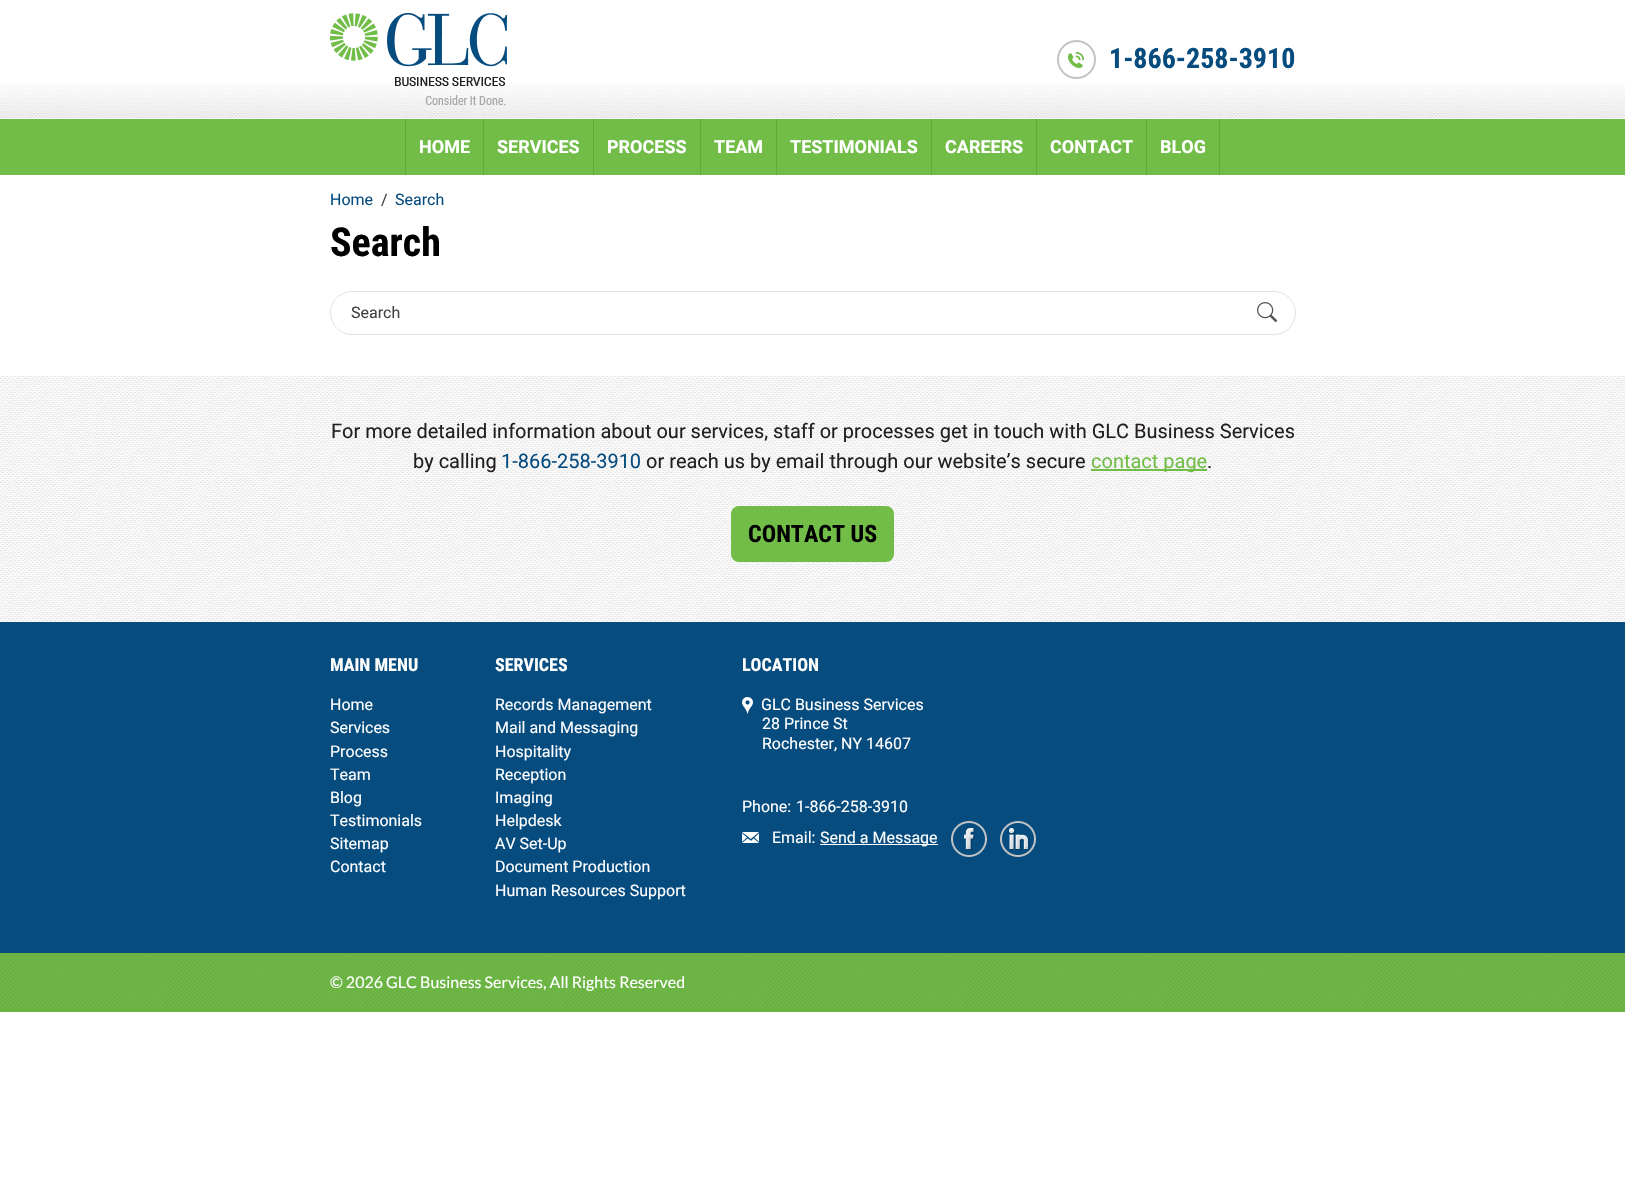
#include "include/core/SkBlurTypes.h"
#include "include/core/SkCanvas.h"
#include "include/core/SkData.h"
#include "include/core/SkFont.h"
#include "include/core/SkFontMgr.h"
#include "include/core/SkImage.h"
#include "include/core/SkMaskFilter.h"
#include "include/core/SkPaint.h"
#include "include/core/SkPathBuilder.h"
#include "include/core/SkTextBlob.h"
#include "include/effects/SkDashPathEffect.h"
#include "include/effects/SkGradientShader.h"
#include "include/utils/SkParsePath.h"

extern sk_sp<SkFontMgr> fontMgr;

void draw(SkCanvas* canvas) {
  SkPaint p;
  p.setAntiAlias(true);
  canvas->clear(SK_ColorWHITE);
  canvas->drawImageRect(SkImages::DeferredFromEncodedData(SkData::MakeFromFileName("images/1.png")), SkRect::MakeLTRB(0, 83, 1625, 118), SkSamplingOptions());
  canvas->drawImageRect(SkImages::DeferredFromEncodedData(SkData::MakeFromFileName("images/2.png")), SkRect::MakeLTRB(330, 13, 507, 105), SkSamplingOptions());
  canvas->drawImageRect(SkImages::DeferredFromEncodedData(SkData::MakeFromFileName("images/3.png")), SkRect::MakeLTRB(1057, 40, 1096, 79), SkSamplingOptions());
  p.setColor(SkColorSetRGB(113, 189, 71));
  canvas->drawRect(SkRect::MakeLTRB(0, 119, 1625, 175), p);
  p.setColor(SkColorSetRGB(95, 171, 53));
  canvas->drawRect(SkRect::MakeLTRB(405, 119, 406, 175), p);
  canvas->drawRect(SkRect::MakeLTRB(483, 119, 484, 175), p);
  canvas->drawRect(SkRect::MakeLTRB(593, 119, 594, 175), p);
  canvas->drawRect(SkRect::MakeLTRB(700, 119, 701, 175), p);
  canvas->drawRect(SkRect::MakeLTRB(776, 119, 777, 175), p);
  canvas->drawRect(SkRect::MakeLTRB(931, 119, 932, 175), p);
  canvas->drawRect(SkRect::MakeLTRB(1036, 119, 1037, 175), p);
  canvas->drawRect(SkRect::MakeLTRB(1146, 119, 1147, 175), p);
  canvas->drawRect(SkRect::MakeLTRB(1219, 119, 1220, 175), p);
  p.setStyle(SkPaint::kStroke_Style);
  p.setStrokeWidth(1);
  p.setColor(SkColorSetRGB(223, 225, 229));
  canvas->drawRoundRect(SkRect::MakeLTRB(330.5f, 291.5f, 1295.5f, 334.5f), 21.5f, 21.5f, p);
  canvas->drawImageRect(SkImages::DeferredFromEncodedData(SkData::MakeFromFileName("images/4.png")), SkRect::MakeLTRB(1257, 302, 1277, 322), SkSamplingOptions());
  canvas->drawImageRect(SkImages::DeferredFromEncodedData(SkData::MakeFromFileName("images/5.png")), SkRect::MakeLTRB(0, 376, 1625, 622), SkSamplingOptions());
  p.setStyle(SkPaint::kFill_Style);
  p.setColor(SkColorSetRGB(113, 189, 71));
  canvas->drawRect(SkRect::MakeLTRB(1091, 469, 1207, 471), p);
  canvas->drawRoundRect(SkRect::MakeLTRB(731, 506, 894, 562), 8, 8, p);
  p.setColor(SkColorSetRGB(6, 76, 127));
  canvas->drawRect(SkRect::MakeLTRB(0, 622, 1625, 953), p);
  canvas->drawImageRect(SkImages::DeferredFromEncodedData(SkData::MakeFromFileName("images/6.png")), SkRect::MakeLTRB(742, 697, 753, 714), SkSamplingOptions());
  canvas->drawImageRect(SkImages::DeferredFromEncodedData(SkData::MakeFromFileName("images/7.png")), SkRect::MakeLTRB(742, 832, 759, 843), SkSamplingOptions());
  p.setColor(SK_ColorWHITE);
  canvas->drawRect(SkRect::MakeLTRB(820, 844, 938, 845), p);
  canvas->drawImageRect(SkImages::DeferredFromEncodedData(SkData::MakeFromFileName("images/8.png")), SkRect::MakeLTRB(951, 821, 987, 857), SkSamplingOptions());
  canvas->drawImageRect(SkImages::DeferredFromEncodedData(SkData::MakeFromFileName("images/9.png")), SkRect::MakeLTRB(1000, 821, 1036, 857), SkSamplingOptions());
  canvas->drawImageRect(SkImages::DeferredFromEncodedData(SkData::MakeFromFileName("images/10.png")), SkRect::MakeLTRB(0, 953, 1625, 1012), SkSamplingOptions());
  SkFont font1(fontMgr->matchFamilyStyle("Roboto Condensed", SkFontStyle::Bold()), 28);
  font1.setSubpixel(true);
  p.setColor(SkColorSetRGB(6, 76, 127));
  canvas->drawString("1-866-258-3910", 1109, 68, font1, p);
  SkFont font2(fontMgr->matchFamilyStyle("Roboto", SkFontStyle::Bold()), 18);
  font2.setSubpixel(true);
  p.setColor(SK_ColorWHITE);
  canvas->drawString("HOME", 419, 153, font2, p);
  canvas->drawString("SERVICES", 497, 153, font2, p);
  canvas->drawString("PROCESS", 607, 153, font2, p);
  canvas->drawString("TEAM", 714, 153, font2, p);
  canvas->drawString("TESTIMONIALS", 790, 153, font2, p);
  canvas->drawString("CAREERS", 945, 153, font2, p);
  canvas->drawString("CONTACT", 1050, 153, font2, p);
  canvas->drawString("BLOG", 1160, 153, font2, p);
  SkFont font3(fontMgr->matchFamilyStyle("Roboto", SkFontStyle::Normal()), 16);
  font3.setSubpixel(true);
  p.setColor(SkColorSetRGB(6, 76, 127));
  canvas->drawString("Home", 330, 205, font3, p);
  p.setColor(SkColorSetRGB(64, 64, 64));
  canvas->drawString("/", 381, 205, font3, p);
  p.setColor(SkColorSetRGB(6, 76, 127));
  canvas->drawString("Search", 395, 205, font3, p);
  SkFont font4(fontMgr->matchFamilyStyle("Roboto Condensed", SkFontStyle::Bold()), 40);
  font4.setSubpixel(true);
  p.setColor(SK_ColorBLACK);
  canvas->drawString("Search", 330, 256, font4, p);
  p.setColor(SkColorSetRGB(64, 64, 64));
  canvas->drawString("Search", 351, 318, font3, p);
  SkFont font5(fontMgr->matchFamilyStyle("Roboto", SkFontStyle::Normal()), 20);
  font5.setSubpixel(true);
  p.setColor(SkColorSetRGB(35, 31, 32));
  canvas->drawString("For more detailed information about our services, staff or processes get in touch with GLC Business Services", 331, 438, font5, p);
  canvas->drawString("by calling", 413, 468, font5, p);
  p.setColor(SkColorSetRGB(6, 76, 127));
  canvas->drawString("1-866-258-3910", 501, 468, font5, p);
  p.setColor(SkColorSetRGB(35, 31, 32));
  canvas->drawString("or reach us by email through our website’s secure", 646, 468, font5, p);
  p.setColor(SkColorSetRGB(113, 189, 71));
  canvas->drawString("contact page", 1091, 468, font5, p);
  p.setColor(SkColorSetRGB(35, 31, 32));
  canvas->drawString(".", 1207, 468, font5, p);
  SkFont font6(fontMgr->matchFamilyStyle("Roboto Condensed", SkFontStyle::Bold()), 24);
  font6.setSubpixel(true);
  p.setColor(SK_ColorBLACK);
  canvas->drawString("CONTACT US", 748, 542, font6, p);
  SkFont font7(fontMgr->matchFamilyStyle("Roboto Condensed", SkFontStyle::Bold()), 18);
  font7.setSubpixel(true);
  p.setColor(SK_ColorWHITE);
  canvas->drawString("MAIN MENU", 330, 671, font7, p);
  canvas->drawString("Home", 330, 710, font3, p);
  canvas->drawString("Services", 330, 733, font3, p);
  canvas->drawString("Process", 330, 757, font3, p);
  canvas->drawString("Team", 330, 780, font3, p);
  canvas->drawString("Blog", 330, 803, font3, p);
  canvas->drawString("Testimonials", 330, 826, font3, p);
  canvas->drawString("Sitemap", 330, 849, font3, p);
  canvas->drawString("Contact", 330, 872, font3, p);
  canvas->drawString("SERVICES", 495, 671, font7, p);
  canvas->drawString("Records Management", 495, 710, font3, p);
  canvas->drawString("Mail and Messaging", 495, 733, font3, p);
  canvas->drawString("Hospitality", 495, 757, font3, p);
  canvas->drawString("Reception", 495, 780, font3, p);
  canvas->drawString("Imaging", 495, 803, font3, p);
  canvas->drawString("Helpdesk", 495, 826, font3, p);
  canvas->drawString("AV Set-Up", 495, 849, font3, p);
  canvas->drawString("Document Production", 495, 872, font3, p);
  canvas->drawString("Human Resources Support", 495, 896, font3, p);
  canvas->drawString("LOCATION", 742, 671, font7, p);
  canvas->drawString("GLC Business Services", 761, 710, font3, p);
  canvas->drawString("28 Prince St", 762, 729, font3, p);
  canvas->drawString("Rochester, NY 14607", 762, 749, font3, p);
  canvas->drawString("Phone:", 742, 812, font3, p);
  canvas->drawString("1-866-258-3910", 796, 812, font3, p);
  canvas->drawString("Email:", 772, 843, font3, p);
  canvas->drawString("Send a Message", 820, 843, font3, p);
  SkFont font8(fontMgr->matchFamilyStyle("Lato", SkFontStyle::Normal()), 16);
  font8.setSubpixel(true);
  canvas->drawString("© 2026 GLC Business Services, All Rights Reserved", 330, 988, font8, p);
}
